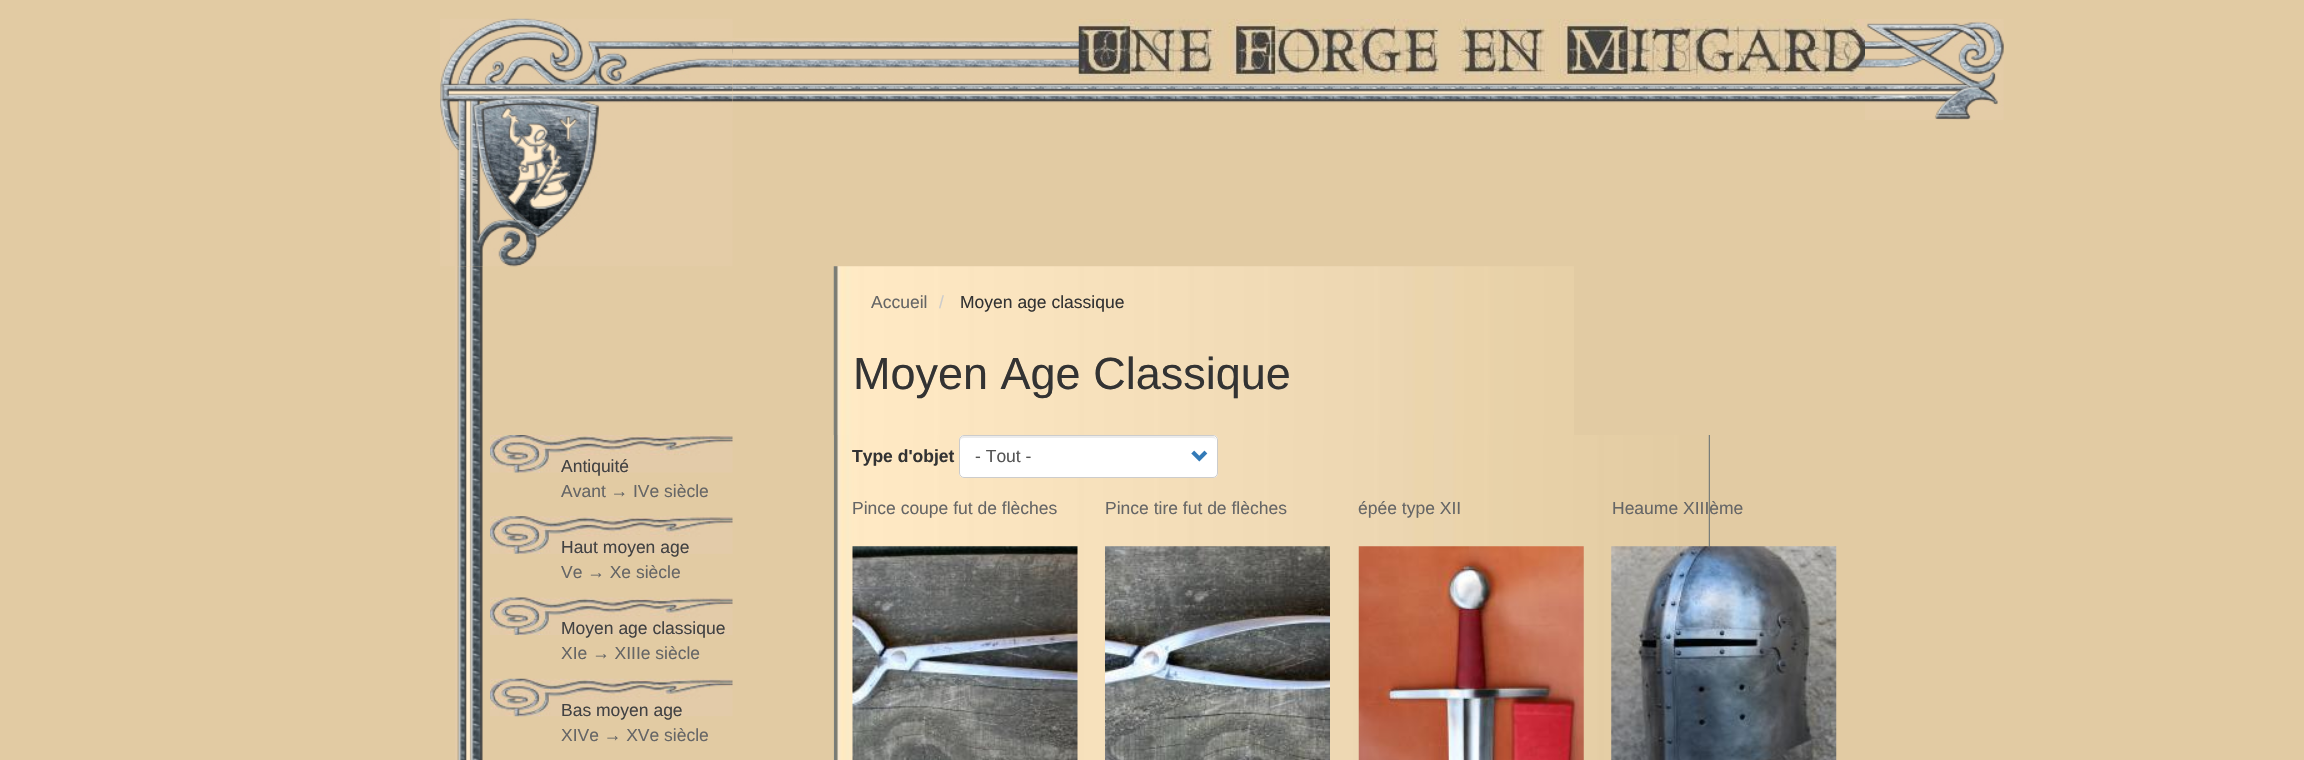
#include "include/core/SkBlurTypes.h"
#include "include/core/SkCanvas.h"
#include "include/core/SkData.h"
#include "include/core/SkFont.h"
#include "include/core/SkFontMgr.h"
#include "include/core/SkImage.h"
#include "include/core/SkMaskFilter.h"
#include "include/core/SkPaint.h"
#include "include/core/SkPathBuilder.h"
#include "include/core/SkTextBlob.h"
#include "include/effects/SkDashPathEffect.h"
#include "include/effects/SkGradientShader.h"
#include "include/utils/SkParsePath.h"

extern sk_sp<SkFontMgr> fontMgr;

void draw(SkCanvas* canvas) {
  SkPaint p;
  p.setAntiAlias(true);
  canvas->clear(SkColorSetRGB(226, 203, 163));
  canvas->drawImageRect(SkImages::DeferredFromEncodedData(SkData::MakeFromFileName("images/1.png")), SkRect::MakeLTRB(732, 38, 1865, 103), SkSamplingOptions());
  canvas->drawImageRect(SkImages::DeferredFromEncodedData(SkData::MakeFromFileName("images/2.png")), SkRect::MakeLTRB(732, 19, 733, 120), SkSamplingOptions());
  canvas->drawImageRect(SkImages::DeferredFromEncodedData(SkData::MakeFromFileName("images/6.png")), SkRect::MakeLTRB(455, 266, 483, 760), SkSamplingOptions());
  canvas->drawImageRect(SkImages::DeferredFromEncodedData(SkData::MakeFromFileName("images/3.png")), SkRect::MakeLTRB(440, 18, 733, 267), SkSamplingOptions());
  canvas->drawImageRect(SkImages::DeferredFromEncodedData(SkData::MakeFromFileName("images/4.png")), SkRect::MakeLTRB(1078, 19, 1865, 81), SkSamplingOptions());
  canvas->drawImageRect(SkImages::DeferredFromEncodedData(SkData::MakeFromFileName("images/5.png")), SkRect::MakeLTRB(1865, 19, 2004, 120), SkSamplingOptions());
  canvas->drawImageRect(SkImages::DeferredFromEncodedData(SkData::MakeFromFileName("images/7.png")), SkRect::MakeLTRB(833, 266, 1574, 435), SkSamplingOptions());
  canvas->drawImageRect(SkImages::DeferredFromEncodedData(SkData::MakeFromFileName("images/8.png")), SkRect::MakeLTRB(490, 435, 733, 473), SkSamplingOptions());
  canvas->drawImageRect(SkImages::DeferredFromEncodedData(SkData::MakeFromFileName("images/9.png")), SkRect::MakeLTRB(490, 516, 733, 554), SkSamplingOptions());
  canvas->drawImageRect(SkImages::DeferredFromEncodedData(SkData::MakeFromFileName("images/10.png")), SkRect::MakeLTRB(490, 597, 733, 635), SkSamplingOptions());
  canvas->drawImageRect(SkImages::DeferredFromEncodedData(SkData::MakeFromFileName("images/11.png")), SkRect::MakeLTRB(490, 678, 733, 717), SkSamplingOptions());
  canvas->drawImageRect(SkImages::DeferredFromEncodedData(SkData::MakeFromFileName("images/12.png")), SkRect::MakeLTRB(833, 435, 1710, 760), SkSamplingOptions());
  p.setColor(SK_ColorWHITE);
  canvas->drawRoundRect(SkRect::MakeLTRB(959, 435, 1218, 478), 5, 5, p);
  p.setColor(SkColorSetRGB(236, 236, 236));
  canvas->drawPath(SkPathBuilder().moveTo(964, 438).lineTo(1212, 438).cubicTo(1215, 438, 1216, 439, 1216, 441).lineTo(1216, 440).cubicTo(1216, 438, 1214, 436, 1212, 436).lineTo(964, 436).cubicTo(962, 436, 960, 438, 960, 440).lineTo(960, 441).cubicTo(960, 439, 962, 438, 964, 438).close().detach(), p);
  p.setStyle(SkPaint::kStroke_Style);
  p.setStrokeWidth(1);
  p.setColor(SkColorSetRGB(204, 204, 204));
  canvas->drawRoundRect(SkRect::MakeLTRB(959.5f, 435.5f, 1217.5f, 477.5f), 4.5f, 4.5f, p);
  canvas->drawImageRect(SkImages::DeferredFromEncodedData(SkData::MakeFromFileName("images/13.png")), SkRect::MakeLTRB(1191, 450, 1208, 462), SkSamplingOptions());
  canvas->drawImageRect(SkImages::DeferredFromEncodedData(SkData::MakeFromFileName("images/14.png")), SkRect::MakeLTRB(852, 546, 1078, 760), SkSamplingOptions());
  canvas->drawImageRect(SkImages::DeferredFromEncodedData(SkData::MakeFromFileName("images/15.png")), SkRect::MakeLTRB(1105, 546, 1330, 760), SkSamplingOptions());
  canvas->drawImageRect(SkImages::DeferredFromEncodedData(SkData::MakeFromFileName("images/16.png")), SkRect::MakeLTRB(1358, 546, 1584, 760), SkSamplingOptions());
  canvas->drawImageRect(SkImages::DeferredFromEncodedData(SkData::MakeFromFileName("images/17.png")), SkRect::MakeLTRB(1611, 546, 1837, 760), SkSamplingOptions());
  SkFont font1(fontMgr->matchFamilyStyle("Liberation Sans", SkFontStyle::Normal()), 17.5f);
  font1.setSubpixel(true);
  p.setStyle(SkPaint::kFill_Style);
  p.setColor(SkColorSetRGB(102, 102, 102));
  canvas->drawString("Accueil", 871, 308, font1, p);
  p.setColor(SkColorSetRGB(204, 204, 204));
  canvas->drawString("/", 939, 308, font1, p);
  p.setColor(SkColorSetRGB(51, 51, 51));
  canvas->drawString("Moyen age classique", 960, 308, font1, p);
  SkFont font2(fontMgr->matchFamilyStyle("Liberation Sans", SkFontStyle::Normal()), 45);
  font2.setSubpixel(true);
  canvas->drawString("Moyen Age Classique", 853, 389, font2, p);
  p.setColor(SkColorSetRGB(66, 66, 66));
  canvas->drawString("Antiquité", 561, 472, font1, p);
  p.setColor(SkColorSetRGB(102, 102, 102));
  canvas->drawString("Avant → IVe siècle", 561, 497, font1, p);
  p.setColor(SkColorSetRGB(66, 66, 66));
  canvas->drawString("Haut moyen age", 561, 553, font1, p);
  p.setColor(SkColorSetRGB(102, 102, 102));
  canvas->drawString("Ve → Xe siècle", 561, 578, font1, p);
  p.setColor(SkColorSetRGB(66, 66, 66));
  canvas->drawString("Moyen age classique", 561, 634, font1, p);
  p.setColor(SkColorSetRGB(102, 102, 102));
  canvas->drawString("XIe → XIIIe siècle", 561, 659, font1, p);
  p.setColor(SkColorSetRGB(66, 66, 66));
  canvas->drawString("Bas moyen age", 561, 716, font1, p);
  p.setColor(SkColorSetRGB(102, 102, 102));
  canvas->drawString("XIVe → XVe siècle", 561, 741, font1, p);
  SkFont font3(fontMgr->matchFamilyStyle("Liberation Sans", SkFontStyle::Bold()), 17.5f);
  font3.setSubpixel(true);
  p.setColor(SkColorSetRGB(51, 51, 51));
  canvas->drawString("Type d'objet", 852, 462, font3, p);
  p.setColor(SkColorSetRGB(85, 85, 85));
  canvas->drawString("- Tout -", 975, 462, font1, p);
  p.setColor(SkColorSetRGB(102, 102, 102));
  canvas->drawString("Pince coupe fut de flèches", 852, 514, font1, p);
  canvas->drawString("Pince tire fut de flèches", 1105, 514, font1, p);
  canvas->drawString("épée type XII", 1358, 514, font1, p);
  canvas->drawString("Heaume XIIIème", 1612, 514, font1, p);
}
